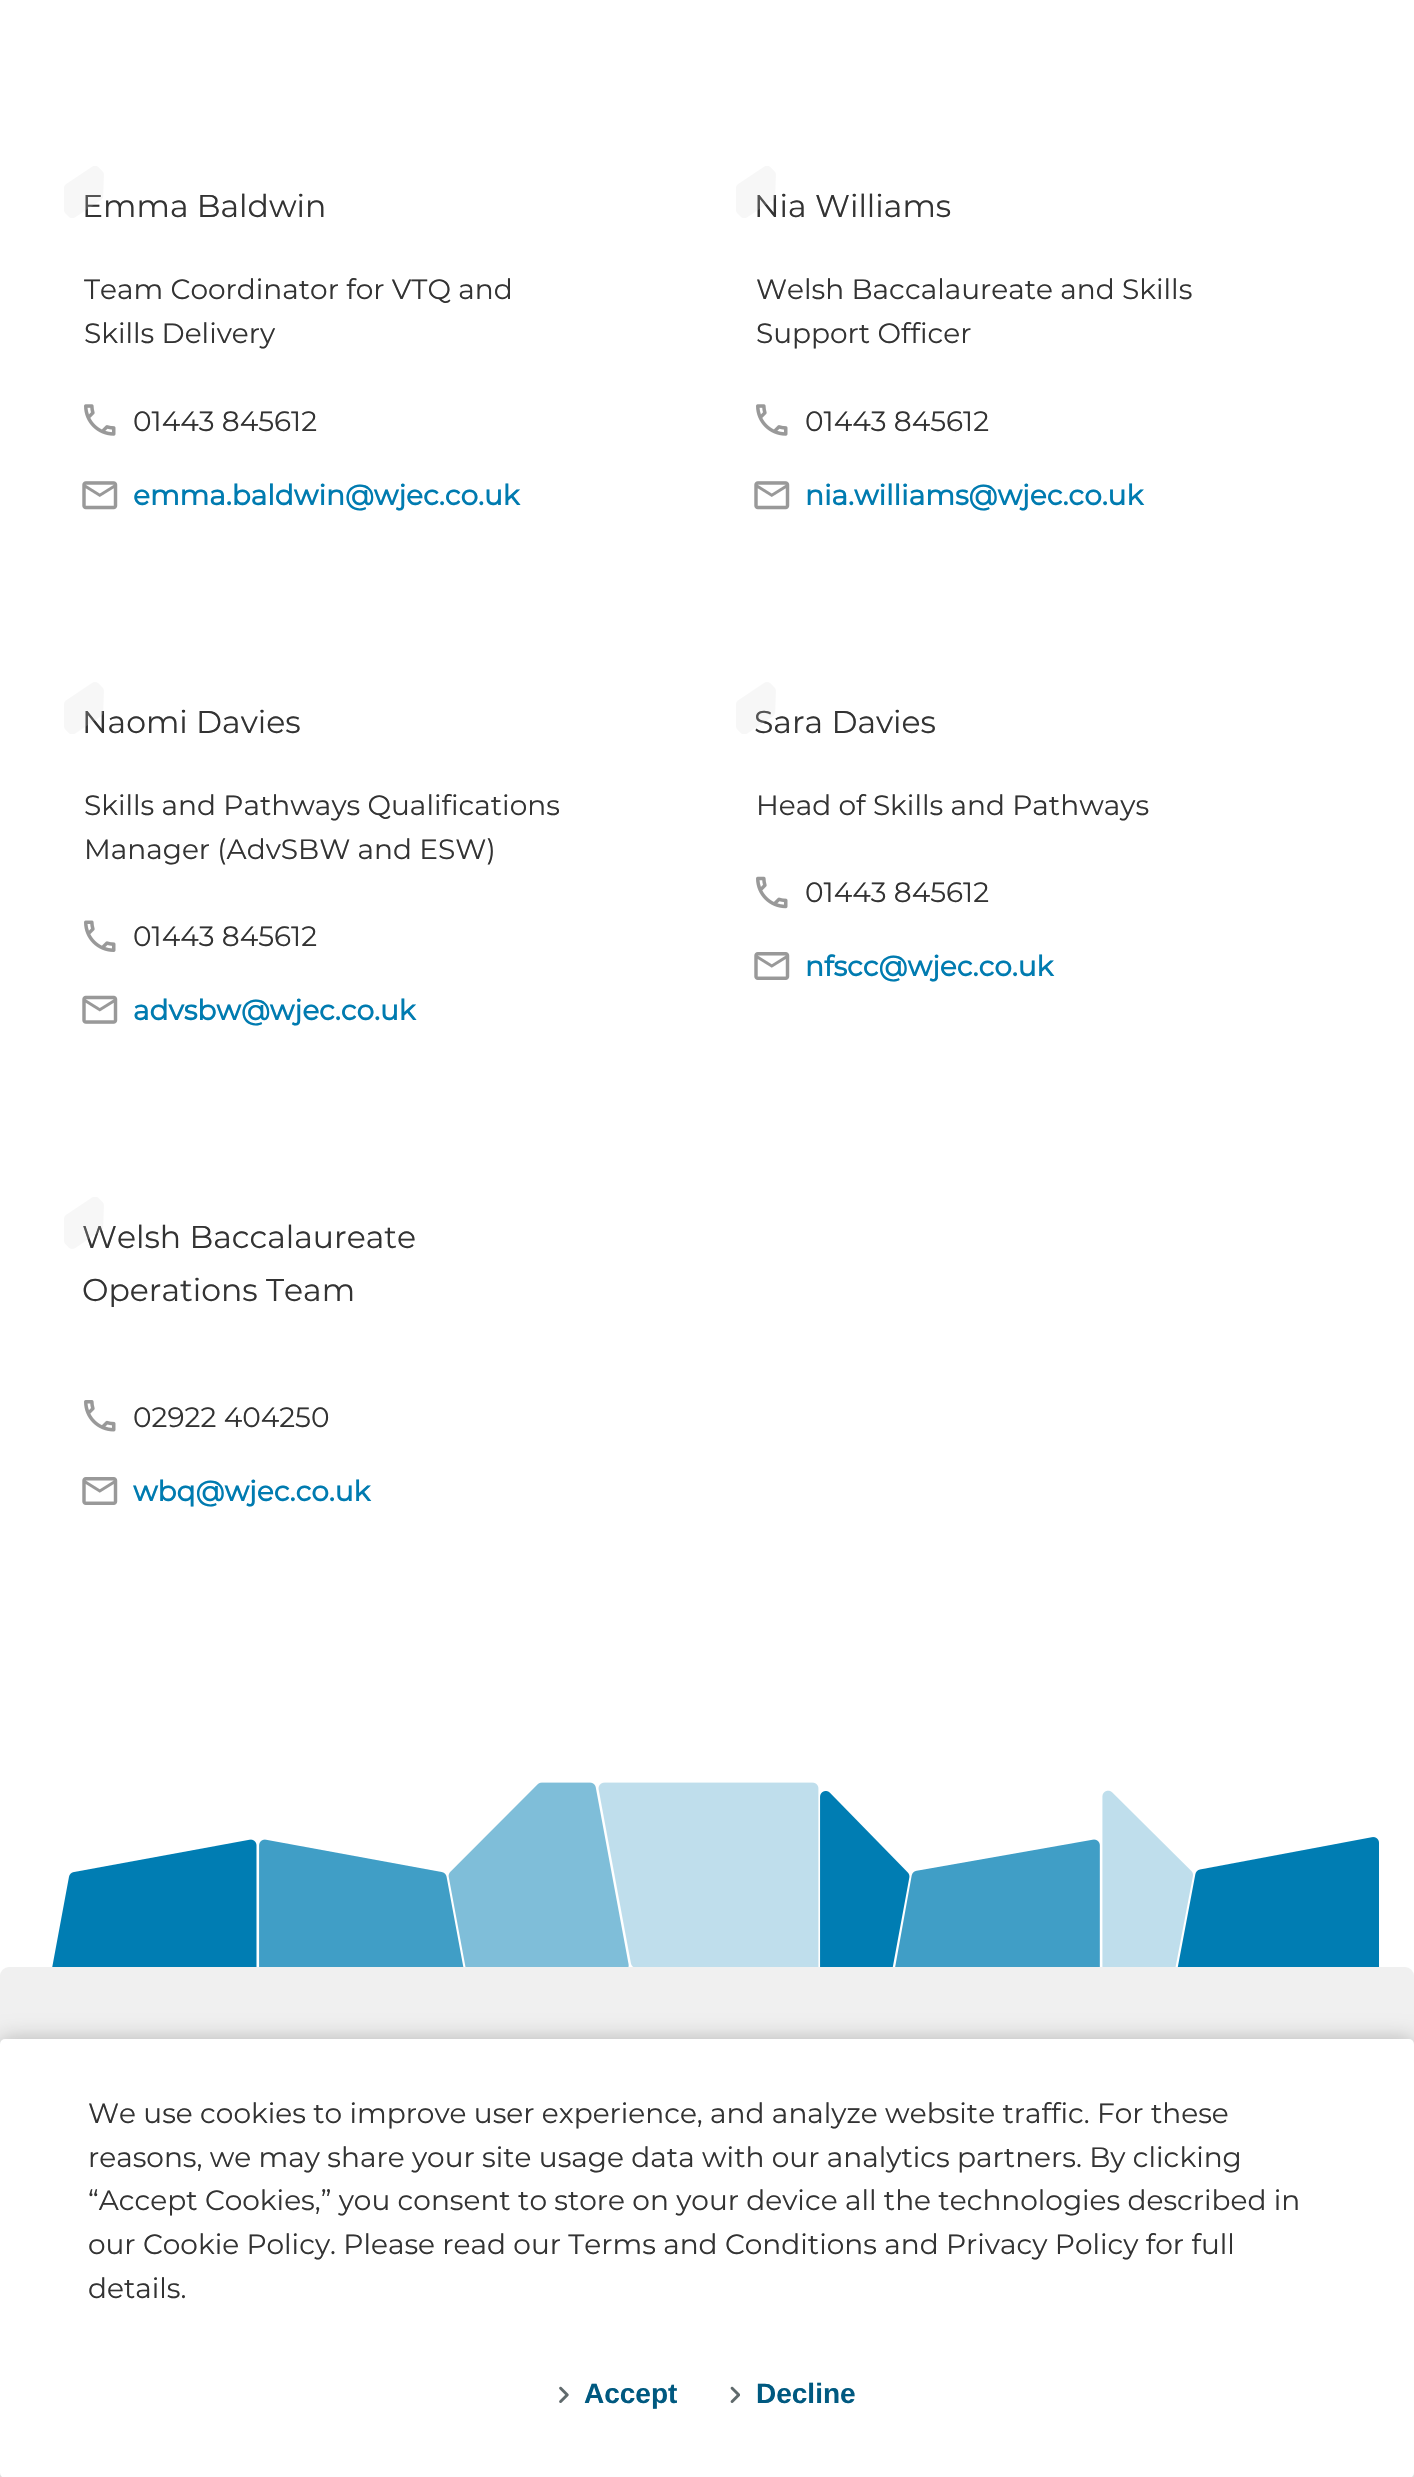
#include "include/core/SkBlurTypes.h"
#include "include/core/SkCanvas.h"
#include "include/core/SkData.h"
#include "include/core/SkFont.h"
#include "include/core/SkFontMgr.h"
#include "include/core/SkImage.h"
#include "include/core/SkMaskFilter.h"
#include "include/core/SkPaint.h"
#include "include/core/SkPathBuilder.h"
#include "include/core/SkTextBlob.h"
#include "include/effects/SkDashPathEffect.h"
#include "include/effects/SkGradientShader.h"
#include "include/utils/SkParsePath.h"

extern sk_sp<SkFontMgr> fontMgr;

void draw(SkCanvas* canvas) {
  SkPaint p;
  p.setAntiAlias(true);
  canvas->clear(SK_ColorWHITE);
  canvas->drawImageRect(SkImages::DeferredFromEncodedData(SkData::MakeFromFileName("images/2.png")), SkRect::MakeLTRB(84, 404, 116, 436), SkSamplingOptions());
  canvas->drawImageRect(SkImages::DeferredFromEncodedData(SkData::MakeFromFileName("images/3.png")), SkRect::MakeLTRB(82, 481, 118, 510), SkSamplingOptions());
  canvas->drawImageRect(SkImages::DeferredFromEncodedData(SkData::MakeFromFileName("images/2.png")), SkRect::MakeLTRB(756, 404, 788, 436), SkSamplingOptions());
  canvas->drawImageRect(SkImages::DeferredFromEncodedData(SkData::MakeFromFileName("images/3.png")), SkRect::MakeLTRB(754, 481, 790, 510), SkSamplingOptions());
  canvas->drawImageRect(SkImages::DeferredFromEncodedData(SkData::MakeFromFileName("images/6.png")), SkRect::MakeLTRB(84, 920, 116, 952), SkSamplingOptions());
  canvas->drawImageRect(SkImages::DeferredFromEncodedData(SkData::MakeFromFileName("images/7.png")), SkRect::MakeLTRB(82, 995, 118, 1024), SkSamplingOptions());
  canvas->drawImageRect(SkImages::DeferredFromEncodedData(SkData::MakeFromFileName("images/9.png")), SkRect::MakeLTRB(756, 876, 788, 909), SkSamplingOptions());
  canvas->drawImageRect(SkImages::DeferredFromEncodedData(SkData::MakeFromFileName("images/10.png")), SkRect::MakeLTRB(754, 952, 790, 980), SkSamplingOptions());
  canvas->drawImageRect(SkImages::DeferredFromEncodedData(SkData::MakeFromFileName("images/12.png")), SkRect::MakeLTRB(84, 1400, 116, 1432), SkSamplingOptions());
  canvas->drawImageRect(SkImages::DeferredFromEncodedData(SkData::MakeFromFileName("images/10.png")), SkRect::MakeLTRB(82, 1477, 118, 1505), SkSamplingOptions());
  canvas->drawImageRect(SkImages::DeferredFromEncodedData(SkData::MakeFromFileName("images/13.png")), SkRect::MakeLTRB(52, 1782, 1379, 1967), SkSamplingOptions());
  p.setColor(SkColorSetRGB(240, 240, 240));
  canvas->drawRoundRect(SkRect::MakeLTRB(0, 1967, 1414, 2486), 9, 9, p);
  p.setColor(SkColorSetARGB(64, 0, 0, 0));
  p.setMaskFilter(SkMaskFilter::MakeBlur(kNormal_SkBlurStyle, 10.5f));
  canvas->drawRoundRect(SkRect::MakeLTRB(0, 2039, 1414, 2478), 5, 5, p);
  p.setMaskFilter(nullptr);
  p.setColor(SK_ColorWHITE);
  canvas->drawRoundRect(SkRect::MakeLTRB(0, 2039, 1414, 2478), 5, 5, p);
  canvas->drawImageRect(SkImages::DeferredFromEncodedData(SkData::MakeFromFileName("images/14.png")), SkRect::MakeLTRB(559, 2386, 569, 2403), SkSamplingOptions());
  canvas->drawImageRect(SkImages::DeferredFromEncodedData(SkData::MakeFromFileName("images/15.png")), SkRect::MakeLTRB(730, 2386, 740, 2403), SkSamplingOptions());
  SkFont font1(fontMgr->matchFamilyStyle("Montserrat", SkFontStyle(100, SkFontStyle::kNormal_Width, SkFontStyle::kUpright_Slant)), 31.5f);
  font1.setSubpixel(true);
  p.setColor(SkColorSetRGB(51, 51, 51));
  canvas->drawString("Emma Baldwin", 82, 217, font1, p);
  canvas->drawImageRect(SkImages::DeferredFromEncodedData(SkData::MakeFromFileName("images/1.png")), SkRect::MakeLTRB(64, 166, 104, 218), SkSamplingOptions());
  SkFont font2(fontMgr->matchFamilyStyle("Montserrat", SkFontStyle(100, SkFontStyle::kNormal_Width, SkFontStyle::kUpright_Slant)), 28);
  font2.setSubpixel(true);
  canvas->drawString("Team Coordinator for VTQ and", 84, 299, font2, p);
  canvas->drawString("Skills Delivery", 84, 343, font2, p);
  canvas->drawString("01443 845612", 133, 431, font2, p);
  SkFont font3(fontMgr->matchFamilyStyle("Montserrat", SkFontStyle::Bold()), 28);
  font3.setSubpixel(true);
  p.setColor(SkColorSetRGB(0, 123, 176));
  canvas->drawString("emma.baldwin@wjec.co.uk", 133, 505, font3, p);
  p.setColor(SkColorSetRGB(51, 51, 51));
  canvas->drawString("Nia Williams", 754, 217, font1, p);
  canvas->drawImageRect(SkImages::DeferredFromEncodedData(SkData::MakeFromFileName("images/4.png")), SkRect::MakeLTRB(736, 166, 776, 218), SkSamplingOptions());
  canvas->drawString("Welsh Baccalaureate and Skills", 756, 299, font2, p);
  canvas->drawString("Support Officer", 756, 343, font2, p);
  canvas->drawString("01443 845612", 805, 431, font2, p);
  p.setColor(SkColorSetRGB(0, 123, 176));
  canvas->drawString("nia.williams@wjec.co.uk", 805, 505, font3, p);
  p.setColor(SkColorSetRGB(51, 51, 51));
  canvas->drawString("Naomi Davies", 82, 733, font1, p);
  canvas->drawImageRect(SkImages::DeferredFromEncodedData(SkData::MakeFromFileName("images/5.png")), SkRect::MakeLTRB(64, 682, 104, 734), SkSamplingOptions());
  canvas->drawString("Skills and Pathways Qualifications", 84, 815, font2, p);
  canvas->drawString("Manager (AdvSBW and ESW)", 84, 859, font2, p);
  canvas->drawString("01443 845612", 133, 946, font2, p);
  p.setColor(SkColorSetRGB(0, 123, 176));
  canvas->drawString("advsbw@wjec.co.uk", 133, 1020, font3, p);
  p.setColor(SkColorSetRGB(51, 51, 51));
  canvas->drawString("Sara Davies", 754, 733, font1, p);
  canvas->drawImageRect(SkImages::DeferredFromEncodedData(SkData::MakeFromFileName("images/8.png")), SkRect::MakeLTRB(736, 682, 776, 734), SkSamplingOptions());
  canvas->drawString("Head of Skills and Pathways", 756, 815, font2, p);
  canvas->drawString("01443 845612", 805, 902, font2, p);
  p.setColor(SkColorSetRGB(0, 123, 176));
  canvas->drawString("nfscc@wjec.co.uk", 805, 976, font3, p);
  p.setColor(SkColorSetRGB(51, 51, 51));
  canvas->drawString("Welsh Baccalaureate", 82, 1248, font1, p);
  canvas->drawImageRect(SkImages::DeferredFromEncodedData(SkData::MakeFromFileName("images/11.png")), SkRect::MakeLTRB(64, 1197, 104, 1249), SkSamplingOptions());
  canvas->drawString("Operations Team", 82, 1301, font1, p);
  canvas->drawString("02922 404250", 133, 1427, font2, p);
  p.setColor(SkColorSetRGB(0, 123, 176));
  canvas->drawString("wbq@wjec.co.uk", 133, 1501, font3, p);
  p.setColor(SkColorSetRGB(51, 51, 51));
  canvas->drawString("We use cookies to improve user experience, and analyze website traffic. For these", 88, 2123, font2, p);
  canvas->drawString("reasons, we may share your site usage data with our analytics partners. By clicking", 88, 2167, font2, p);
  canvas->drawString("“Accept Cookies,” you consent to store on your device all the technologies described in", 88, 2210, font2, p);
  canvas->drawString("our Cookie Policy. Please read our Terms and Conditions and Privacy Policy for full", 88, 2254, font2, p);
  canvas->drawString("details.", 88, 2298, font2, p);
  SkFont font4(fontMgr->matchFamilyStyle("Liberation Sans", SkFontStyle::Bold()), 28);
  font4.setSubpixel(true);
  p.setColor(SkColorSetRGB(0, 89, 128));
  canvas->drawString("Accept", 584, 2403, font4, p);
  canvas->drawString("Decline", 756, 2403, font4, p);
}
